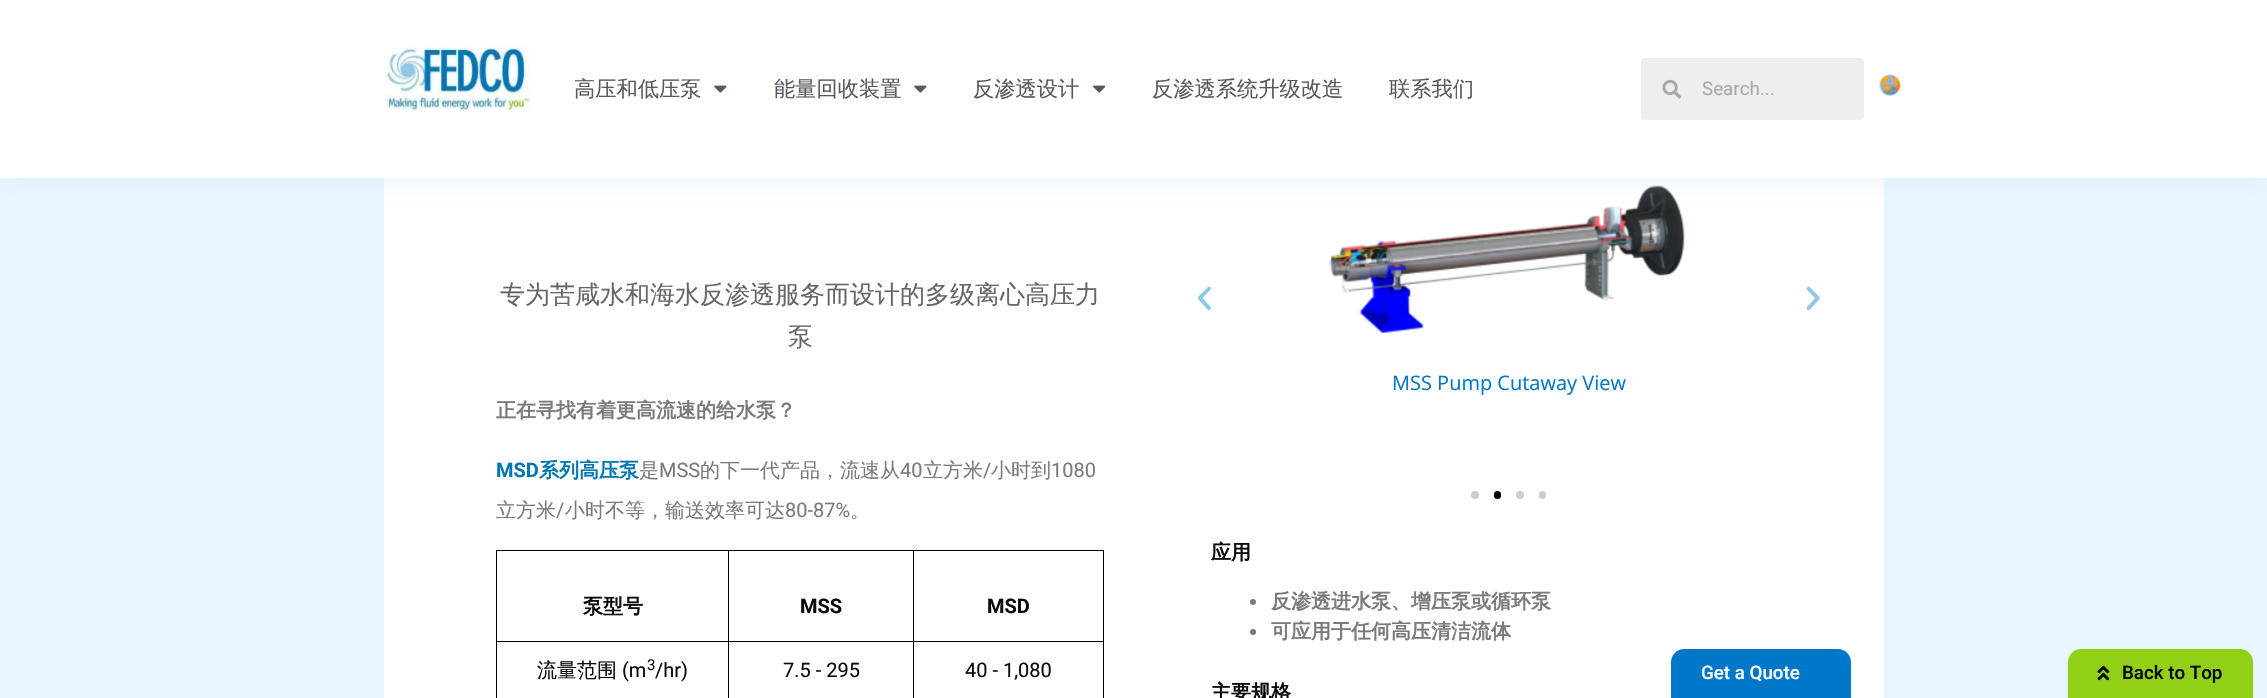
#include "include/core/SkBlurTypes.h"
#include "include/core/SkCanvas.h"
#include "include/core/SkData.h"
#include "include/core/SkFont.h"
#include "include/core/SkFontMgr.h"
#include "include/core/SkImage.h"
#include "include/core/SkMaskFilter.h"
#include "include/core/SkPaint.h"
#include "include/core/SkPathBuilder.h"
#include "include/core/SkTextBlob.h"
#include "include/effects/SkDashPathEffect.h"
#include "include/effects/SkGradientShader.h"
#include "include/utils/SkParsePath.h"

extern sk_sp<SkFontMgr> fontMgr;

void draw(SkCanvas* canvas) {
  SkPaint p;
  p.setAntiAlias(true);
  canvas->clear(SkColorSetRGB(232, 246, 255));
  p.setColor(SK_ColorWHITE);
  canvas->drawRect(SkRect::MakeLTRB(384, 178, 1884, 698), p);
  canvas->drawImageRect(SkImages::DeferredFromEncodedData(SkData::MakeFromFileName("images/8.png")), SkRect::MakeLTRB(1329, 185, 1685, 334), SkSamplingOptions());
  p.setColor(SkColorSetARGB(89, 196, 220, 237));
  p.setMaskFilter(SkMaskFilter::MakeBlur(kNormal_SkBlurStyle, 15));
  canvas->drawRect(SkRect::MakeLTRB(0, 0, 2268, 178), p);
  p.setMaskFilter(nullptr);
  p.setColor(SK_ColorWHITE);
  canvas->drawRect(SkRect::MakeLTRB(0, 0, 2267, 178), p);
  canvas->drawImageRect(SkImages::DeferredFromEncodedData(SkData::MakeFromFileName("images/1.png")), SkRect::MakeLTRB(384, 47, 533, 112), SkSamplingOptions());
  canvas->drawImageRect(SkImages::DeferredFromEncodedData(SkData::MakeFromFileName("images/2.png")), SkRect::MakeLTRB(714, 85, 727, 93), SkSamplingOptions());
  canvas->drawImageRect(SkImages::DeferredFromEncodedData(SkData::MakeFromFileName("images/2.png")), SkRect::MakeLTRB(914, 85, 927, 93), SkSamplingOptions());
  canvas->drawImageRect(SkImages::DeferredFromEncodedData(SkData::MakeFromFileName("images/3.png")), SkRect::MakeLTRB(1093, 85, 1106, 93), SkSamplingOptions());
  p.setColor(SkColorSetRGB(236, 238, 239));
  canvas->drawRoundRect(SkRect::MakeLTRB(1641, 58, 1864, 120), 4, 4, p);
  canvas->drawImageRect(SkImages::DeferredFromEncodedData(SkData::MakeFromFileName("images/4.png")), SkRect::MakeLTRB(1662, 79, 1682, 99), SkSamplingOptions());
  canvas->drawImageRect(SkImages::DeferredFromEncodedData(SkData::MakeFromFileName("images/5.png")), SkRect::MakeLTRB(1879, 74, 1901, 96), SkSamplingOptions());
  p.setColor(SK_ColorBLACK);
  canvas->drawRect(SkRect::MakeLTRB(913, 550, 1104, 551), p);
  canvas->drawRect(SkRect::MakeLTRB(913, 641, 1104, 642), p);
  canvas->drawRect(SkRect::MakeLTRB(913, 641, 914, 698), p);
  canvas->drawRect(SkRect::MakeLTRB(728, 641, 914, 642), p);
  canvas->drawRect(SkRect::MakeLTRB(913, 550, 914, 643), p);
  canvas->drawRect(SkRect::MakeLTRB(728, 550, 914, 551), p);
  canvas->drawRect(SkRect::MakeLTRB(728, 641, 729, 698), p);
  canvas->drawRect(SkRect::MakeLTRB(496, 641, 729, 642), p);
  canvas->drawRect(SkRect::MakeLTRB(728, 550, 729, 643), p);
  canvas->drawRect(SkRect::MakeLTRB(496, 550, 729, 551), p);
  canvas->drawRect(SkRect::MakeLTRB(496, 641, 497, 698), p);
  canvas->drawRect(SkRect::MakeLTRB(496, 550, 497, 643), p);
  canvas->drawRect(SkRect::MakeLTRB(1103, 641, 1104, 698), p);
  canvas->drawRect(SkRect::MakeLTRB(1103, 550, 1104, 643), p);
  canvas->drawImageRect(SkImages::DeferredFromEncodedData(SkData::MakeFromFileName("images/6.png")), SkRect::MakeLTRB(1197, 286, 1211, 311), SkSamplingOptions());
  canvas->drawImageRect(SkImages::DeferredFromEncodedData(SkData::MakeFromFileName("images/7.png")), SkRect::MakeLTRB(1806, 286, 1820, 311), SkSamplingOptions());
  p.setColor(SkColorSetRGB(204, 204, 204));
  canvas->drawCircle(1475, 495, 4, p);
  p.setColor(SK_ColorBLACK);
  canvas->drawRoundRect(SkRect::MakeLTRB(1494, 491, 1501, 499), 3.5f, 3.5f, p);
  p.setColor(SkColorSetRGB(204, 204, 204));
  canvas->drawCircle(1520, 495, 4, p);
  canvas->drawRoundRect(SkRect::MakeLTRB(1539, 491, 1546, 499), 3.5f, 3.5f, p);
  p.setColor(SkColorSetRGB(122, 122, 122));
  canvas->drawCircle(1253, 602, 3, p);
  canvas->drawCircle(1253, 632, 3, p);
  p.setColor(SkColorSetRGB(0, 119, 200));
  canvas->drawPath(SkPathBuilder().moveTo(1684, 649).lineTo(1838, 649).cubicTo(1845, 649, 1851, 655, 1851, 662).lineTo(1851, 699).lineTo(1671, 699).lineTo(1671, 662).cubicTo(1671, 655, 1677, 649, 1684, 649).close().detach(), p);
  p.setColor(SkColorSetRGB(144, 209, 23));
  canvas->drawPath(SkPathBuilder().moveTo(2081, 649).lineTo(2240, 649).cubicTo(2247, 649, 2253, 655, 2253, 662).lineTo(2253, 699).lineTo(2068, 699).lineTo(2068, 662).cubicTo(2068, 655, 2074, 649, 2081, 649).close().detach(), p);
  canvas->drawImageRect(SkImages::DeferredFromEncodedData(SkData::MakeFromFileName("images/9.png")), SkRect::MakeLTRB(2097, 665, 2110, 681), SkSamplingOptions());
  SkFont font1(fontMgr->matchFamilyStyle("WenQuanYi Zen Hei", SkFontStyle(500, SkFontStyle::kNormal_Width, SkFontStyle::kUpright_Slant)), 21.25f);
  font1.setSubpixel(true);
  p.setColor(SkColorSetRGB(84, 89, 95));
  canvas->drawString("高压和低压泵", 574, 96, font1, p);
  canvas->drawString("能量回收装置", 774, 96, font1, p);
  canvas->drawString("反渗透设计", 973, 96, font1, p);
  canvas->drawString("反渗透系统升级改造", 1152, 96, font1, p);
  canvas->drawString("联系我们", 1389, 96, font1, p);
  SkFont font2(fontMgr->matchFamilyStyle("Roboto", SkFontStyle::Normal()), 18.75f);
  font2.setSubpixel(true);
  p.setColor(SkColorSetRGB(168, 168, 169));
  canvas->drawString("Search...", 1702, 95, font2, p);
  SkFont font3(fontMgr->matchFamilyStyle("WenQuanYi Zen Hei", SkFontStyle(500, SkFontStyle::kNormal_Width, SkFontStyle::kUpright_Slant)), 25);
  font3.setSubpixel(true);
  p.setColor(SkColorSetRGB(102, 102, 102));
  canvas->drawString("专为苦咸水和海水反渗透服务而设计的多级离心高压力", 500, 303, font3, p);
  canvas->drawString("泵", 788, 345, font3, p);
  SkFont font4(fontMgr->matchFamilyStyle("WenQuanYi Zen Hei", SkFontStyle::Bold()), 20);
  font4.setSubpixel(true);
  p.setColor(SkColorSetRGB(122, 122, 122));
  canvas->drawString("正在寻找有着更高流速的给水泵？", 496, 417, font4, p);
  SkFont font5(fontMgr->matchFamilyStyle("Roboto", SkFontStyle::Bold()), 20);
  font5.setSubpixel(true);
  p.setColor(SkColorSetRGB(0, 119, 179));
  canvas->drawString("MSD", 496, 477, font5, p);
  canvas->drawString("系列高压泵", 539, 477, font4, p);
  SkFont font6(fontMgr->matchFamilyStyle("WenQuanYi Zen Hei", SkFontStyle(500, SkFontStyle::kNormal_Width, SkFontStyle::kUpright_Slant)), 20);
  font6.setSubpixel(true);
  p.setColor(SkColorSetRGB(122, 122, 122));
  canvas->drawString("是", 639, 477, font6, p);
  SkFont font7(fontMgr->matchFamilyStyle("Roboto", SkFontStyle::Normal()), 20);
  font7.setSubpixel(true);
  canvas->drawString("MSS", 659, 477, font7, p);
  canvas->drawString("的下一代产品，流速从", 700, 477, font6, p);
  canvas->drawString("40", 900, 477, font7, p);
  canvas->drawString("立方米", 923, 477, font6, p);
  canvas->drawString("/", 983, 477, font7, p);
  canvas->drawString("小时到", 991, 477, font6, p);
  canvas->drawString("1080", 1051, 477, font7, p);
  canvas->drawString("立方米", 496, 517, font6, p);
  canvas->drawString("/", 556, 517, font7, p);
  canvas->drawString("小时不等，输送效率可达", 565, 517, font6, p);
  canvas->drawString("80-87%", 785, 517, font7, p);
  canvas->drawString("。", 850, 517, font6, p);
  p.setColor(SkColorSetRGB(12, 11, 11));
  canvas->drawString("泵型号", 583, 613, font4, p);
  canvas->drawString("MSS", 800, 613, font5, p);
  canvas->drawString("MSD", 987, 613, font5, p);
  canvas->drawString("流量范围", 537, 677, font6, p);
  canvas->drawString("(m", 622, 677, font7, p);
  SkFont font8(fontMgr->matchFamilyStyle("Roboto", SkFontStyle::Normal()), 15);
  font8.setSubpixel(true);
  canvas->drawString("3", 647, 670, font8, p);
  canvas->drawString("/hr)", 655, 677, font7, p);
  canvas->drawString("7.5 - 295", 783, 677, font7, p);
  canvas->drawString("40 - 1,080", 965, 677, font7, p);
  SkFont font9(fontMgr->matchFamilyStyle("Open Sans", SkFontStyle::Normal()), 20);
  font9.setSubpixel(true);
  p.setColor(SkColorSetRGB(0, 119, 200));
  canvas->drawString("MSS Pump Cutaway View", 1392, 390, font9, p);
  p.setColor(SkColorSetRGB(12, 11, 11));
  canvas->drawString("应用", 1211, 559, font4, p);
  p.setColor(SkColorSetRGB(122, 122, 122));
  canvas->drawString("反渗透进水泵、增压泵或循环泵", 1271, 608, font4, p);
  canvas->drawString("可应用于任何高压清洁流体", 1271, 638, font4, p);
  p.setColor(SkColorSetRGB(12, 11, 11));
  canvas->drawString("主要规格", 1211, 699, font4, p);
  SkFont font10(fontMgr->matchFamilyStyle("Roboto", SkFontStyle(500, SkFontStyle::kNormal_Width, SkFontStyle::kUpright_Slant)), 18.75f);
  font10.setSubpixel(true);
  p.setColor(SK_ColorWHITE);
  canvas->drawString("Get a Quote", 1701, 679, font10, p);
  p.setColor(SK_ColorBLACK);
  canvas->drawString("Back to Top", 2122, 679, font10, p);
}
